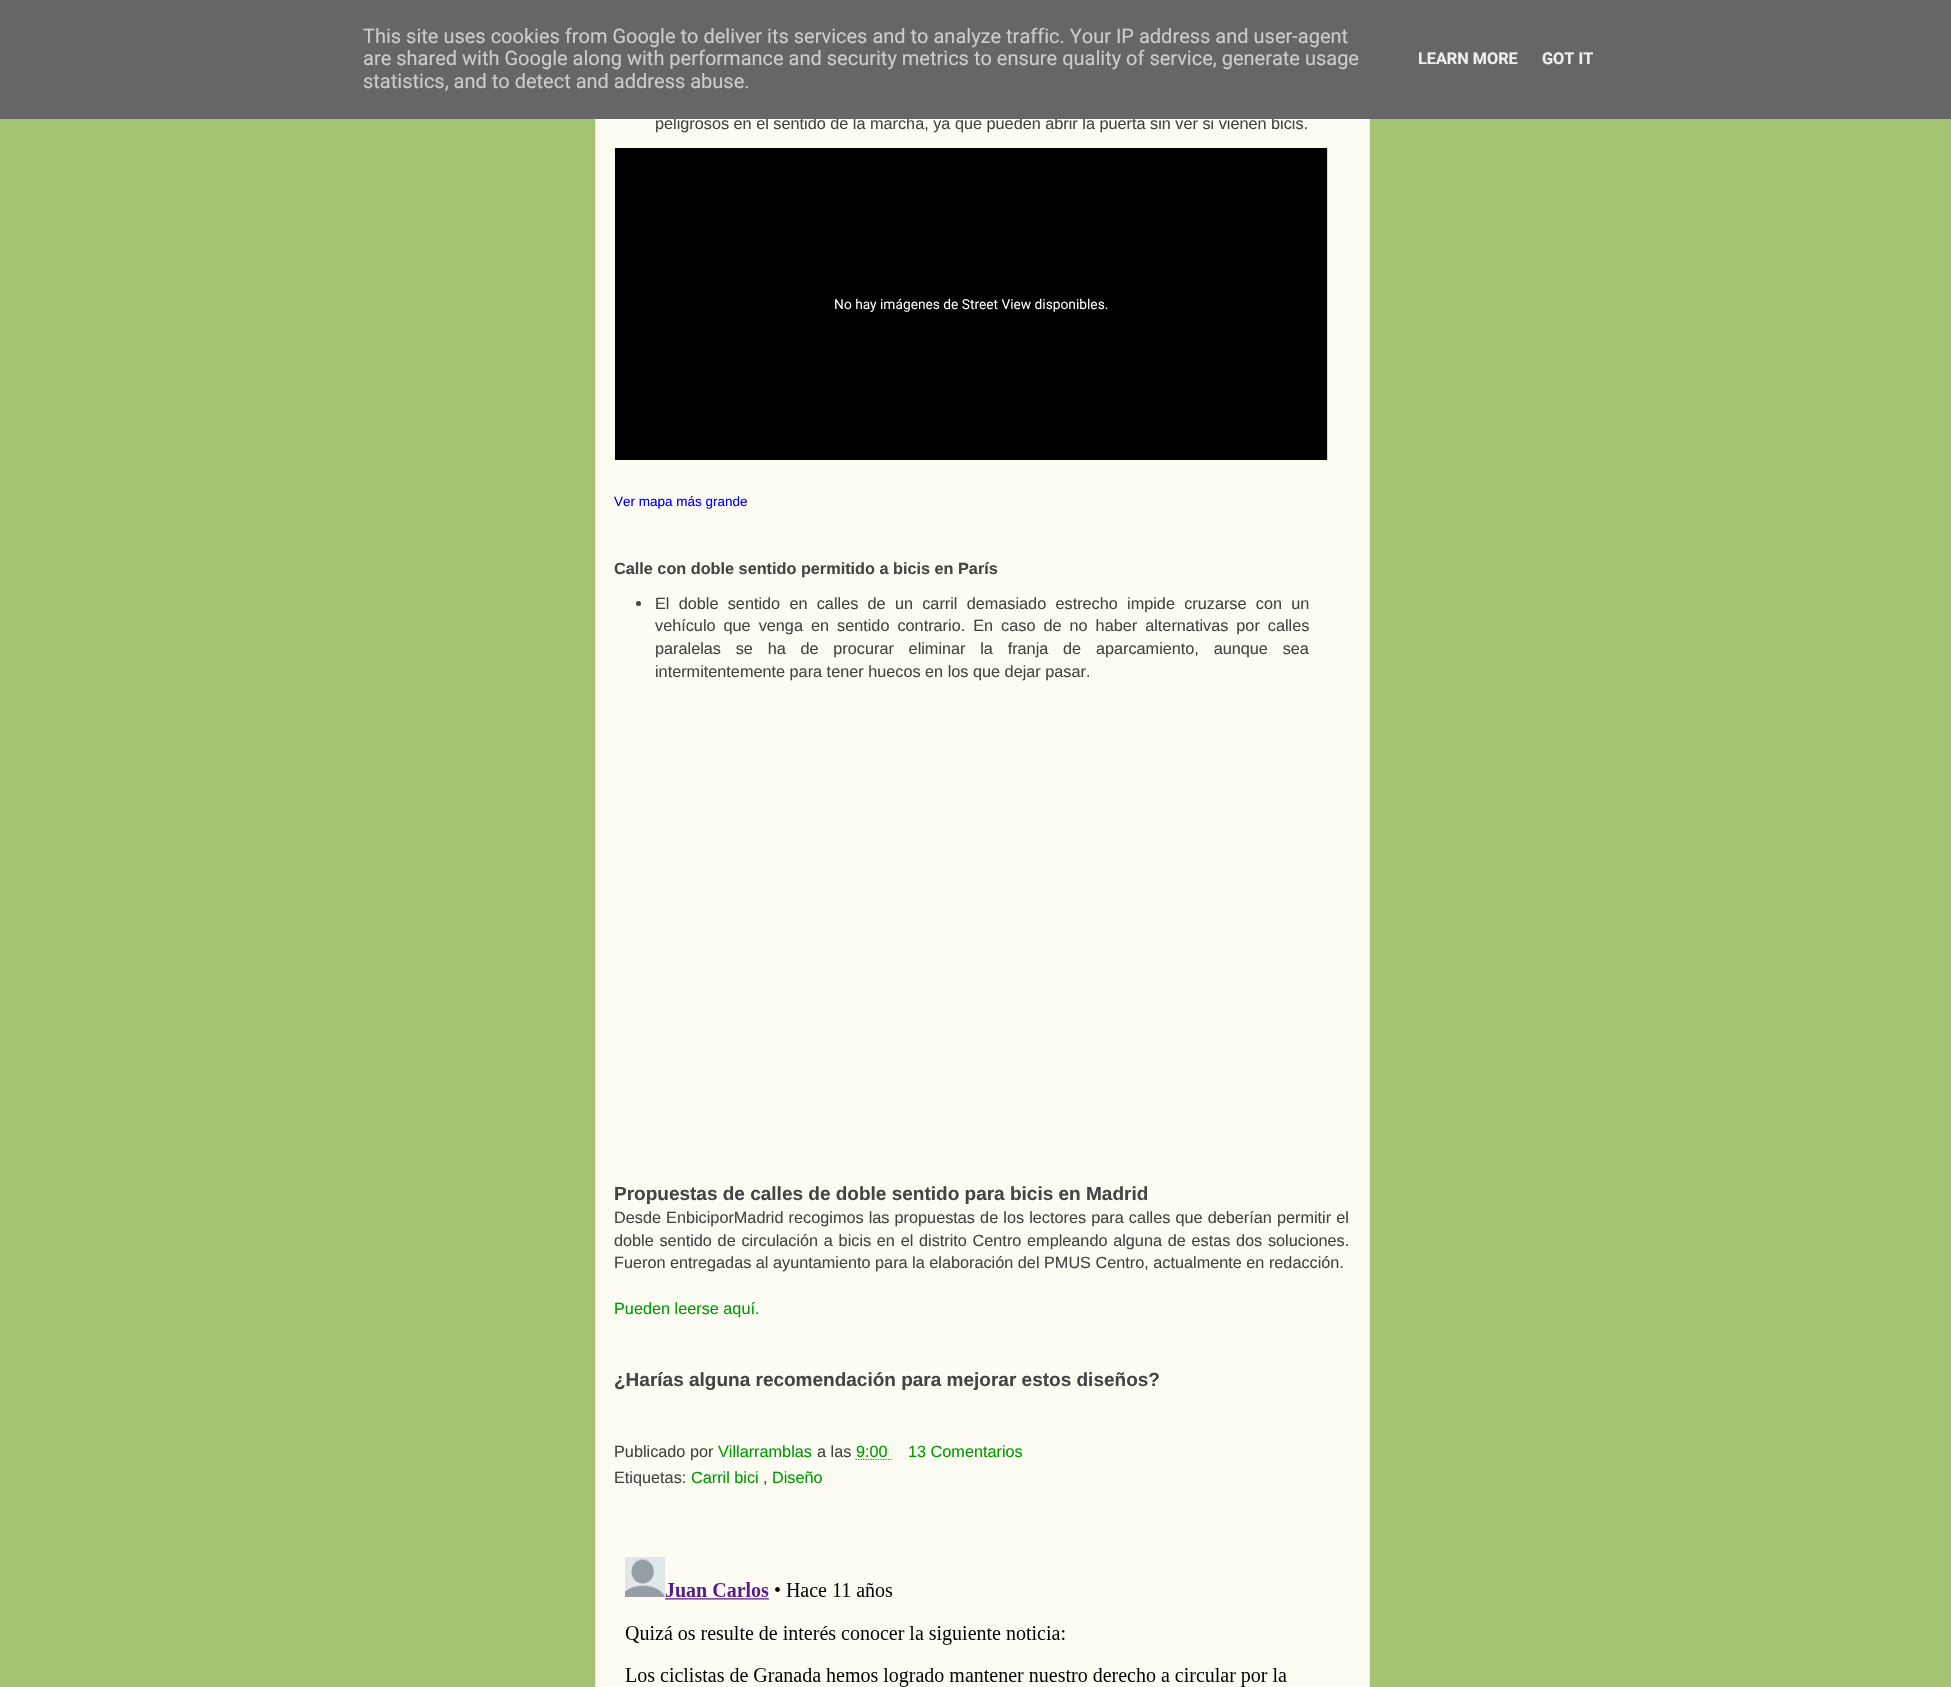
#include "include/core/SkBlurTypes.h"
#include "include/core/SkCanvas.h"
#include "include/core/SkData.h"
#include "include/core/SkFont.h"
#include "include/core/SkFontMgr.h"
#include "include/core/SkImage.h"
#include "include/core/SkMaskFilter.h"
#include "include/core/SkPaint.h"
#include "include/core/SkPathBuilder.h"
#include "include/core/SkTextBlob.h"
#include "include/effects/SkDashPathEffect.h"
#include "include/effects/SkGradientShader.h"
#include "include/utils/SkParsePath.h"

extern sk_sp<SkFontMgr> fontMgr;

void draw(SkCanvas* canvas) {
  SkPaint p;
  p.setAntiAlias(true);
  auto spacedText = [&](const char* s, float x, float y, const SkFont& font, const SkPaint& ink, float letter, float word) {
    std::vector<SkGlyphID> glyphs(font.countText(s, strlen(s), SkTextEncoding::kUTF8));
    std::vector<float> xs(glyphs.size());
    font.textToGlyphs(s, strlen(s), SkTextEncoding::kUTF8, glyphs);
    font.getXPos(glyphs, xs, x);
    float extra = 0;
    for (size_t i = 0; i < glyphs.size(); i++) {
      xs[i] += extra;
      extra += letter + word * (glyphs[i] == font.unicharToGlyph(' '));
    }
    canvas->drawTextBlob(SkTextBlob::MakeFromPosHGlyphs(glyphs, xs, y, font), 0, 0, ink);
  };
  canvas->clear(SkColorSetRGB(165, 193, 114));
  p.setColor(SkColorSetRGB(252, 252, 242));
  canvas->drawRect(SkRect::MakeLTRB(596, 119, 1369, 1687), p);
  p.setStyle(SkPaint::kStroke_Style);
  p.setStrokeWidth(1);
  p.setColor(SkColorSetRGB(204, 255, 204));
  canvas->drawRect(SkRect::MakeLTRB(595.5f, -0.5f, 1369.5f, 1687.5f), p);
  canvas->drawImageRect(SkImages::DeferredFromEncodedData(SkData::MakeFromFileName("images/1.png")), SkRect::MakeLTRB(615, 147, 1328, 461), SkSamplingOptions());
  p.setStyle(SkPaint::kFill_Style);
  p.setColor(SkColorSetRGB(68, 68, 68));
  canvas->drawCircle(638.5f, 603.5f, 2.5f, p);
  p.setStyle(SkPaint::kStroke_Style);
  p.setStrokeWidth(1.2f);
  p.setColor(SkColorSetRGB(0, 153, 0));
  p.setPathEffect(SkDashPathEffect::Make({{1.25f, 1.25f}}, 0));
  canvas->drawPath(SkPathBuilder().moveTo(855.5f, 1459.5f).lineTo(891.5f, 1459.5f).detach(), p);
  p.setPathEffect(nullptr);
  canvas->drawImageRect(SkImages::DeferredFromEncodedData(SkData::MakeFromFileName("images/2.png")), SkRect::MakeLTRB(625, 1557, 1287, 1687), SkSamplingOptions());
  SkFont font1(fontMgr->matchFamilyStyle("Liberation Sans", SkFontStyle::Normal()), 16.25f);
  font1.setSubpixel(true);
  p.setStyle(SkPaint::kFill_Style);
  p.setColor(SkColorSetRGB(68, 68, 68));
  canvas->drawString("peligrosos en el sentido de la marcha, ya que pueden abrir la puerta sin ver si vienen bicis.", 655, 129, font1, p);
  p.setColor(SkColorSetRGB(102, 102, 102));
  canvas->drawRect(SkRect::MakeLTRB(0, 0, 1951, 119), p);
  SkFont font2(fontMgr->matchFamilyStyle("Roboto", SkFontStyle::Bold()), 16.25f);
  font2.setSubpixel(true);
  p.setColor(SkColorSetRGB(238, 238, 238));
  canvas->drawString("GOT IT", 1542, 64, font2, p);
  canvas->drawString("LEARN MORE", 1418, 64, font2, p);
  SkFont font3(fontMgr->matchFamilyStyle("Roboto", SkFontStyle::Normal()), 20);
  font3.setSubpixel(true);
  p.setColor(SkColorSetRGB(204, 204, 204));
  canvas->drawString("statistics, and to detect and address abuse.", 363, 88, font3, p);
  canvas->drawString("are shared with Google along with performance and security metrics to ensure quality of service, generate usage", 363, 65, font3, p);
  canvas->drawString("This site uses cookies from Google to deliver its services and to analyze traffic. Your IP address and user-agent", 363, 43, font3, p);
  SkFont font4(fontMgr->matchFamilyStyle("Liberation Sans", SkFontStyle::Normal()), 13.5f);
  font4.setSubpixel(true);
  p.setColor(SkColorSetRGB(0, 0, 255));
  canvas->drawString("Ver mapa más grande", 614, 506, font4, p);
  SkFont font5(fontMgr->matchFamilyStyle("Liberation Sans", SkFontStyle::Bold()), 16.25f);
  font5.setSubpixel(true);
  p.setColor(SkColorSetRGB(68, 68, 68));
  canvas->drawString("Calle con doble sentido permitido a bicis en París", 614, 574, font5, p);
  spacedText("El doble sentido en calles de un carril demasiado estrecho impide cruzarse con un", 655, 609, font1, p, 0, 4.75f);
  spacedText("vehículo que venga en sentido contrario. En caso de no haber alternativas por calles", 655, 631, font1, p, 0, 3.5f);
  spacedText("paralelas se ha de procurar eliminar la franja de aparcamiento, aunque sea", 655, 654, font1, p, 0, 10.25f);
  canvas->drawString("intermitentemente para tener huecos en los que dejar pasar.", 655, 677, font1, p);
  SkFont font6(fontMgr->matchFamilyStyle("Liberation Sans", SkFontStyle::Bold()), 19);
  font6.setSubpixel(true);
  canvas->drawString("Propuestas de calles de doble sentido para bicis en Madrid", 614, 1200, font6, p);
  spacedText("Desde EnbiciporMadrid recogimos las propuestas de los lectores para calles que deberían permitir el", 614, 1223, font1, p, 0, 0.6f);
  spacedText("doble sentido de circulación a bicis en el distrito Centro empleando alguna de estas dos soluciones.", 614, 1246, font1, p, 0, 1.2f);
  canvas->drawString("Fueron entregadas al ayuntamiento para la elaboración del PMUS Centro, actualmente en redacción.", 614, 1268, font1, p);
  p.setColor(SkColorSetRGB(0, 153, 0));
  canvas->drawString("Pueden leerse aquí.", 614, 1314, font1, p);
  p.setColor(SkColorSetRGB(68, 68, 68));
  canvas->drawString("¿Harías alguna recomendación para mejorar estos diseños?", 614, 1386, font6, p);
  canvas->drawString("Publicado por", 614, 1457, font1, p);
  p.setColor(SkColorSetRGB(0, 153, 0));
  canvas->drawString("Villarramblas", 718, 1457, font1, p);
  p.setColor(SkColorSetRGB(68, 68, 68));
  canvas->drawString("a las", 817, 1457, font1, p);
  p.setColor(SkColorSetRGB(0, 153, 0));
  canvas->drawString("9:00", 856, 1457, font1, p);
  canvas->drawString("13 Comentarios", 908, 1457, font1, p);
  p.setColor(SkColorSetRGB(68, 68, 68));
  canvas->drawString("Etiquetas:", 614, 1483, font1, p);
  p.setColor(SkColorSetRGB(0, 153, 0));
  canvas->drawString("Carril bici", 691, 1483, font1, p);
  p.setColor(SkColorSetRGB(68, 68, 68));
  canvas->drawString(",", 763, 1483, font1, p);
  p.setColor(SkColorSetRGB(0, 153, 0));
  canvas->drawString("Diseño", 772, 1483, font1, p);
}
